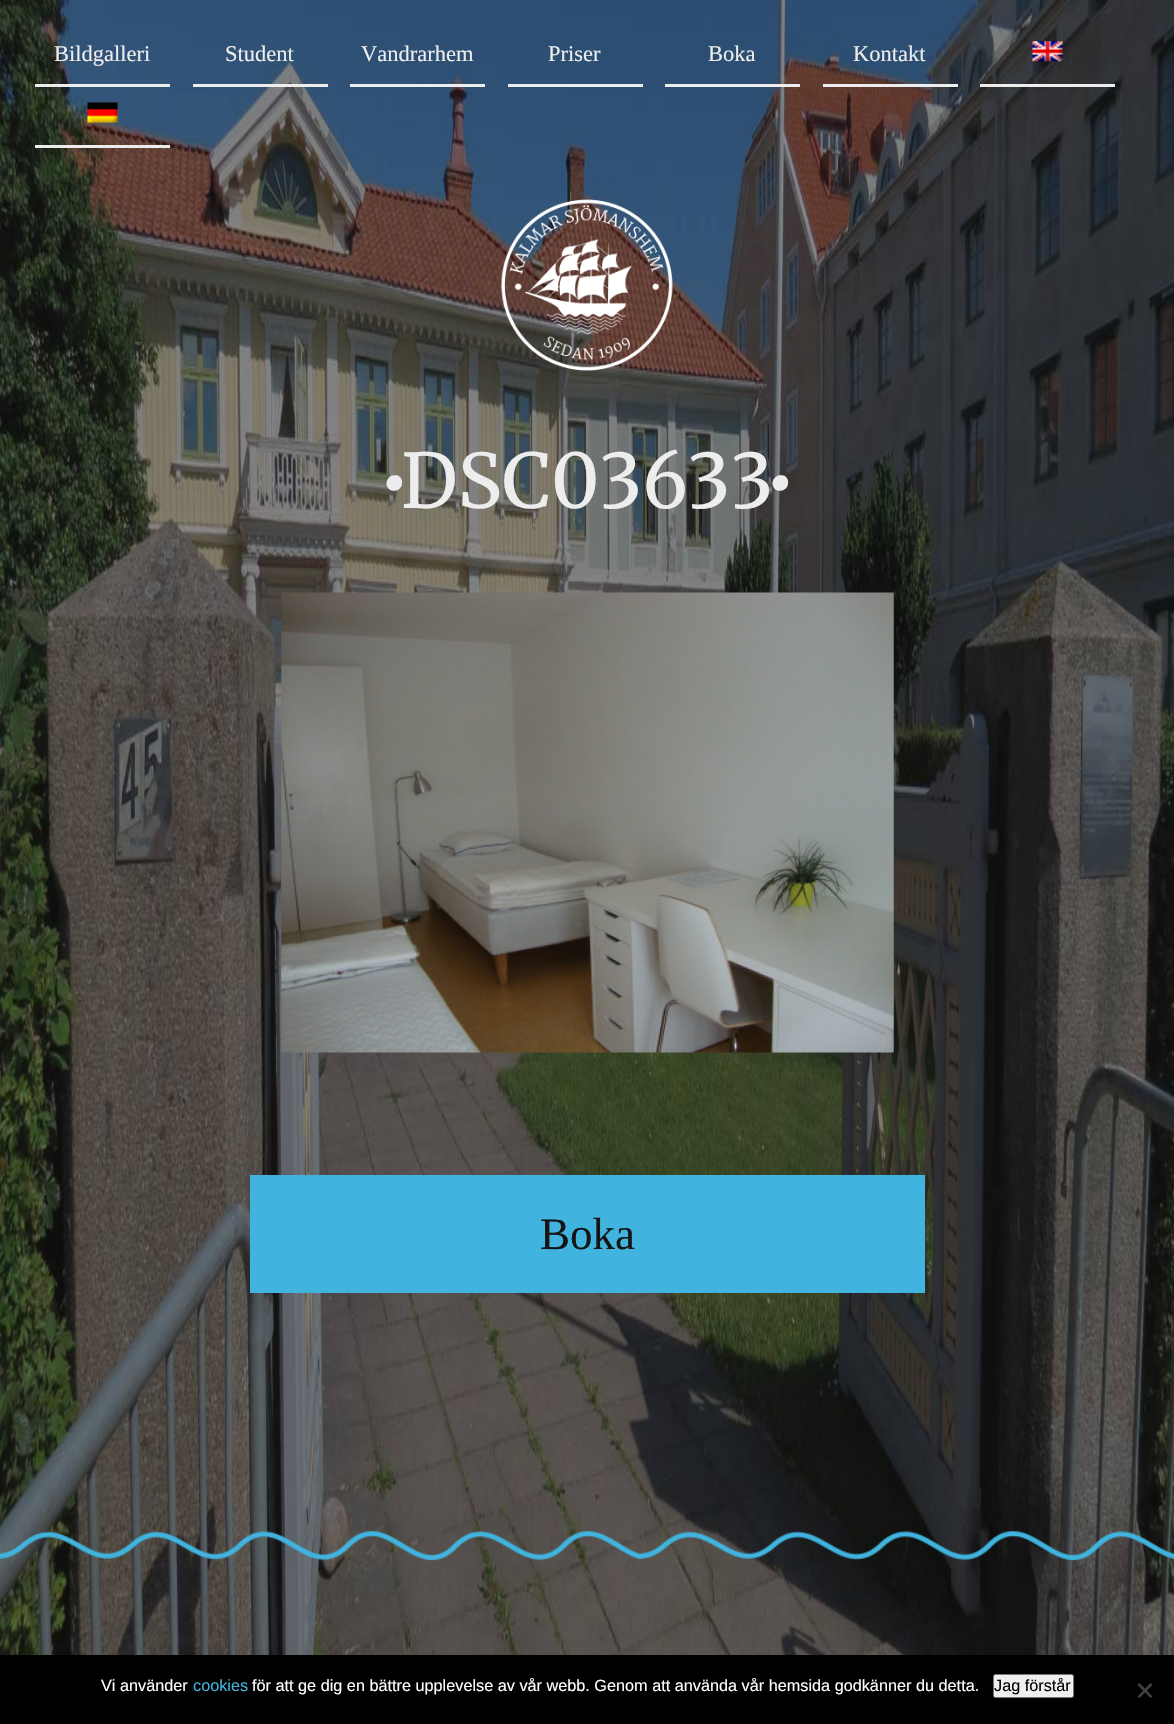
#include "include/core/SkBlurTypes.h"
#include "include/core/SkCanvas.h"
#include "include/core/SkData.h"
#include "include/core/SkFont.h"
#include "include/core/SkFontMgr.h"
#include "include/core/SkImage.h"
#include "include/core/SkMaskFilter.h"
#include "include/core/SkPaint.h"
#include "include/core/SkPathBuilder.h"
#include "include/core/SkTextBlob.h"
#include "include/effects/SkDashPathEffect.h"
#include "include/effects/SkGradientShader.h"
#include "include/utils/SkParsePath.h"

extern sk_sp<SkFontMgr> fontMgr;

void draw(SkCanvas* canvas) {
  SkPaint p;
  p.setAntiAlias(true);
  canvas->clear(SK_ColorWHITE);
  canvas->drawImageRect(SkImages::DeferredFromEncodedData(SkData::MakeFromFileName("images/1.png")), SkRect::MakeLTRB(0, 0, 1174, 1655), SkSamplingOptions());
  p.setColor(SkColorSetRGB(237, 237, 237));
  canvas->drawRect(SkRect::MakeLTRB(35, 84, 170, 87), p);
  canvas->drawRect(SkRect::MakeLTRB(193, 84, 328, 87), p);
  canvas->drawRect(SkRect::MakeLTRB(350, 84, 485, 87), p);
  canvas->drawRect(SkRect::MakeLTRB(508, 84, 643, 87), p);
  canvas->drawRect(SkRect::MakeLTRB(665, 84, 800, 87), p);
  canvas->drawRect(SkRect::MakeLTRB(823, 84, 958, 87), p);
  canvas->drawRect(SkRect::MakeLTRB(980, 84, 1115, 87), p);
  canvas->drawImageRect(SkImages::DeferredFromEncodedData(SkData::MakeFromFileName("images/2.png")), SkRect::MakeLTRB(1032, 41, 1063, 62), SkSamplingOptions());
  canvas->drawRect(SkRect::MakeLTRB(35, 145, 170, 148), p);
  canvas->drawImageRect(SkImages::DeferredFromEncodedData(SkData::MakeFromFileName("images/3.png")), SkRect::MakeLTRB(87, 102, 118, 123), SkSamplingOptions());
  canvas->drawImageRect(SkImages::DeferredFromEncodedData(SkData::MakeFromFileName("images/4.png")), SkRect::MakeLTRB(501, 199, 673, 371), SkSamplingOptions());
  canvas->drawImageRect(SkImages::DeferredFromEncodedData(SkData::MakeFromFileName("images/5.png")), SkRect::MakeLTRB(281, 592, 894, 1053), SkSamplingOptions());
  p.setColor(SkColorSetRGB(64, 180, 222));
  canvas->drawRect(SkRect::MakeLTRB(250, 1175, 925, 1293), p);
  canvas->drawImageRect(SkImages::DeferredFromEncodedData(SkData::MakeFromFileName("images/6.png")), SkRect::MakeLTRB(0, 1531, 1174, 1561), SkSamplingOptions());
  p.setColor(SK_ColorBLACK);
  canvas->drawRect(SkRect::MakeLTRB(0, 1655, 1174, 1724), p);
  p.setColor(SkColorSetRGB(239, 239, 239));
  canvas->drawRoundRect(SkRect::MakeLTRB(993.5f, 1674.5f, 1073.5f, 1697.5f), 2, 2, p);
  p.setStyle(SkPaint::kStroke_Style);
  p.setStrokeWidth(1);
  p.setColor(SkColorSetRGB(118, 118, 118));
  canvas->drawRoundRect(SkRect::MakeLTRB(993.5f, 1674.5f, 1073.5f, 1697.5f), 2, 2, p);
  p.setStyle(SkPaint::kFill_Style);
  p.setColor(SkColorSetRGB(64, 64, 64));
  canvas->drawPath(SkPathBuilder().moveTo(1150.5f, 1683).lineTo(1152.5f, 1685).lineTo(1139.5f, 1698).lineTo(1137.5f, 1696.5f).close().detach(), p);
  canvas->drawPath(SkPathBuilder().moveTo(1137.5f, 1685).lineTo(1139.5f, 1683).lineTo(1152.5f, 1696.5f).lineTo(1150.5f, 1698).close().detach(), p);
  SkFont font1(fontMgr->matchFamilyStyle("Liberation Serif", SkFontStyle::Normal()), 22.5f);
  font1.setSubpixel(true);
  p.setColor(SkColorSetRGB(237, 237, 237));
  canvas->drawString("Bildgalleri", 54, 61, font1, p);
  canvas->drawString("Student", 225, 61, font1, p);
  canvas->drawString("Vandrarhem", 361, 61, font1, p);
  canvas->drawString("Priser", 548, 61, font1, p);
  canvas->drawString("Boka", 708, 61, font1, p);
  canvas->drawString("Kontakt", 853, 61, font1, p);
  SkFont font2(fontMgr->matchFamilyStyle("Merriweather", SkFontStyle::Normal()), 112);
  font2.setSubpixel(true);
  canvas->drawString("·", 388, 528, font2, p);
  SkFont font3(fontMgr->matchFamilyStyle("Merriweather", SkFontStyle::Normal()), 75);
  font3.setSubpixel(true);
  canvas->drawString("DSC03633", 401, 508, font3, p);
  canvas->drawString("·", 774, 528, font2, p);
  SkFont font4(fontMgr->matchFamilyStyle("Liberation Serif", SkFontStyle::Normal()), 45);
  font4.setSubpixel(true);
  p.setColor(SkColorSetRGB(21, 21, 21));
  canvas->drawString("Boka", 540, 1249, font4, p);
  SkFont font5(fontMgr->matchFamilyStyle("Liberation Sans", SkFontStyle::Normal()), 16.25f);
  font5.setSubpixel(true);
  p.setColor(SK_ColorWHITE);
  canvas->drawString("Vi använder", 101, 1691, font5, p);
  p.setColor(SkColorSetRGB(64, 180, 222));
  canvas->drawString("cookies", 193, 1691, font5, p);
  p.setColor(SK_ColorWHITE);
  canvas->drawString("för att ge dig en bättre upplevelse av vår webb. Genom att använda vår hemsida godkänner du detta.", 252, 1691, font5, p);
  p.setColor(SK_ColorBLACK);
  canvas->drawString("Jag förstår", 994, 1691, font5, p);
}
